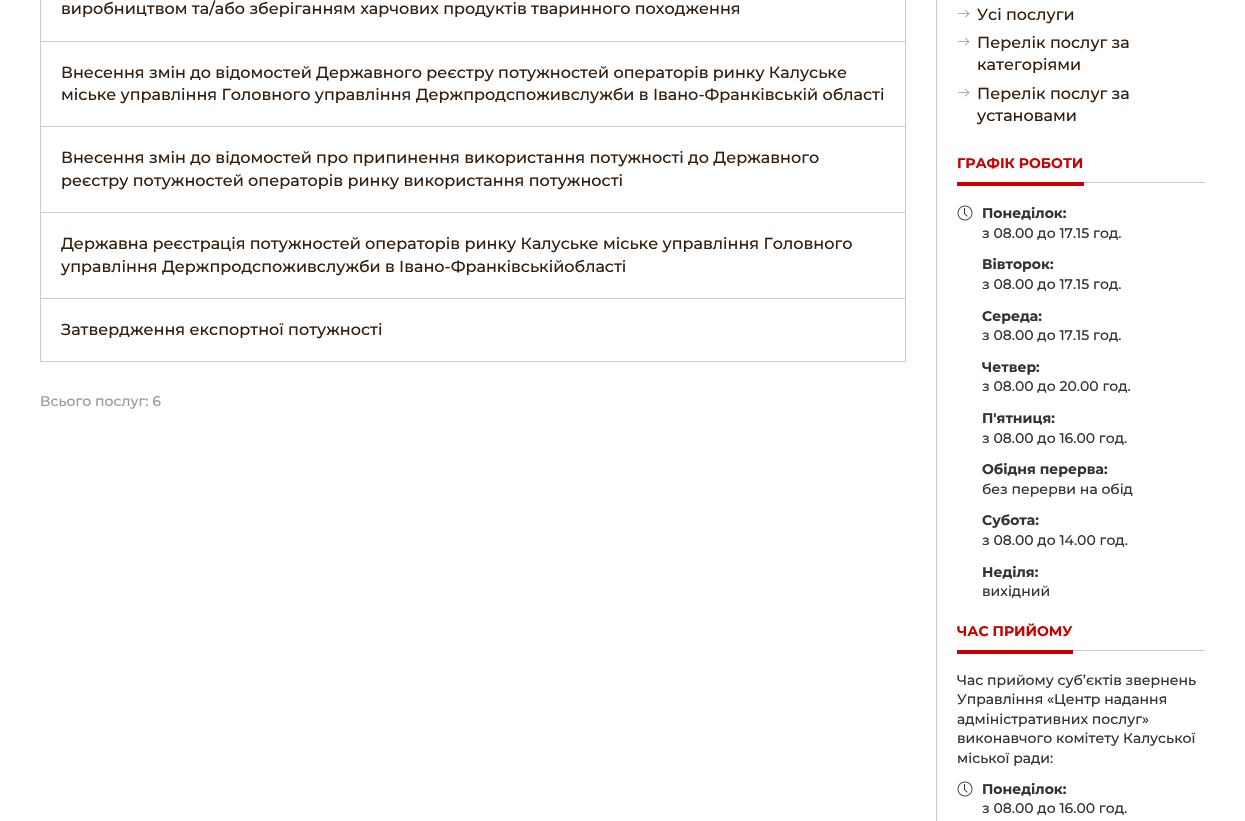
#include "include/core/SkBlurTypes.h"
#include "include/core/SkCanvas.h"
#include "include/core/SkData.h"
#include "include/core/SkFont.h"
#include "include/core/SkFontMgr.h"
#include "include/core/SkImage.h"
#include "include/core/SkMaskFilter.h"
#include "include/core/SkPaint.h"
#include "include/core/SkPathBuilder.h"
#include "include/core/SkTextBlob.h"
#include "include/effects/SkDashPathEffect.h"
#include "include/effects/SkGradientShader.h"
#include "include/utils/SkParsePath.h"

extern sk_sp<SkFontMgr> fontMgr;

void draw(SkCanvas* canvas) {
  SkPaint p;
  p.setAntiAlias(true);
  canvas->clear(SK_ColorWHITE);
  p.setColor(SkColorSetRGB(204, 204, 204));
  canvas->drawRect(SkRect::MakeLTRB(40, 361, 906, 362), p);
  canvas->drawRect(SkRect::MakeLTRB(905, 0, 906, 41), p);
  canvas->drawRect(SkRect::MakeLTRB(40, 0, 41, 41), p);
  canvas->drawRect(SkRect::MakeLTRB(40, 41, 906, 42), p);
  canvas->drawRect(SkRect::MakeLTRB(905, 41, 906, 126), p);
  canvas->drawRect(SkRect::MakeLTRB(40, 41, 41, 126), p);
  canvas->drawRect(SkRect::MakeLTRB(40, 126, 906, 127), p);
  canvas->drawRect(SkRect::MakeLTRB(905, 126, 906, 212), p);
  canvas->drawRect(SkRect::MakeLTRB(40, 126, 41, 212), p);
  canvas->drawRect(SkRect::MakeLTRB(40, 212, 906, 213), p);
  canvas->drawRect(SkRect::MakeLTRB(905, 212, 906, 298), p);
  canvas->drawRect(SkRect::MakeLTRB(40, 212, 41, 298), p);
  canvas->drawRect(SkRect::MakeLTRB(40, 298, 906, 299), p);
  canvas->drawRect(SkRect::MakeLTRB(905, 298, 906, 361), p);
  canvas->drawRect(SkRect::MakeLTRB(40, 298, 41, 361), p);
  canvas->drawRect(SkRect::MakeLTRB(936, 0, 937, 821), p);
  canvas->drawImageRect(SkImages::DeferredFromEncodedData(SkData::MakeFromFileName("images/1.png")), SkRect::MakeLTRB(958, 9, 970, 18), SkSamplingOptions());
  canvas->drawImageRect(SkImages::DeferredFromEncodedData(SkData::MakeFromFileName("images/1.png")), SkRect::MakeLTRB(958, 37, 970, 46), SkSamplingOptions());
  canvas->drawImageRect(SkImages::DeferredFromEncodedData(SkData::MakeFromFileName("images/1.png")), SkRect::MakeLTRB(958, 88, 970, 97), SkSamplingOptions());
  canvas->drawRect(SkRect::MakeLTRB(1084, 182, 1205, 183), p);
  p.setColor(SkColorSetRGB(204, 0, 0));
  canvas->drawRect(SkRect::MakeLTRB(957, 182, 1084, 186), p);
  canvas->drawImageRect(SkImages::DeferredFromEncodedData(SkData::MakeFromFileName("images/2.png")), SkRect::MakeLTRB(957, 205, 973, 221), SkSamplingOptions());
  p.setColor(SkColorSetRGB(204, 204, 204));
  canvas->drawRect(SkRect::MakeLTRB(1073, 650, 1205, 651), p);
  p.setColor(SkColorSetRGB(204, 0, 0));
  canvas->drawRect(SkRect::MakeLTRB(957, 650, 1073, 654), p);
  canvas->drawImageRect(SkImages::DeferredFromEncodedData(SkData::MakeFromFileName("images/2.png")), SkRect::MakeLTRB(957, 781, 973, 797), SkSamplingOptions());
  SkFont font1(fontMgr->matchFamilyStyle("Montserrat", SkFontStyle(500, SkFontStyle::kNormal_Width, SkFontStyle::kUpright_Slant)), 16);
  font1.setSubpixel(true);
  p.setColor(SkColorSetRGB(53, 30, 12));
  canvas->drawString("виробництвом та/або зберіганням харчових продуктів тваринного походження", 61, 14, font1, p);
  canvas->drawString("Внесення змін до відомостей Державного реєстру потужностей операторів ринку Калуське", 61, 78, font1, p);
  canvas->drawString("міське управління Головного управління Держпродспоживслужби в Івано-Франківській області", 61, 100, font1, p);
  canvas->drawString("Внесення змін до відомостей про припинення використання потужності до Державного", 61, 163, font1, p);
  canvas->drawString("реєстру потужностей операторів ринку використання потужності", 61, 186, font1, p);
  canvas->drawString("Державна реєстрація потужностей операторів ринку Калуське міське управління Головного", 61, 249, font1, p);
  canvas->drawString("управління Держпродспоживслужби в Івано-Франківськійобласті", 61, 272, font1, p);
  canvas->drawString("Затвердження експортної потужності", 61, 335, font1, p);
  SkFont font2(fontMgr->matchFamilyStyle("Montserrat", SkFontStyle(500, SkFontStyle::kNormal_Width, SkFontStyle::kUpright_Slant)), 14);
  font2.setSubpixel(true);
  p.setColor(SkColorSetRGB(153, 153, 153));
  canvas->drawString("Всього послуг: 6", 40, 406, font2, p);
  p.setColor(SkColorSetRGB(53, 30, 12));
  canvas->drawString("Усі послуги", 977, 20, font1, p);
  canvas->drawString("Перелік послуг за", 977, 48, font1, p);
  canvas->drawString("категоріями", 977, 70, font1, p);
  canvas->drawString("Перелік послуг за", 977, 99, font1, p);
  canvas->drawString("установами", 977, 121, font1, p);
  SkFont font3(fontMgr->matchFamilyStyle("Montserrat", SkFontStyle::Bold()), 14);
  font3.setSubpixel(true);
  p.setColor(SkColorSetRGB(204, 0, 0));
  canvas->drawString("ГРАФІК РОБОТИ", 957, 168, font3, p);
  p.setColor(SkColorSetRGB(51, 51, 51));
  canvas->drawString("Понеділок:", 982, 218, font3, p);
  canvas->drawString("з 08.00 до 17.15 год.", 982, 238, font2, p);
  canvas->drawString("Вівторок:", 982, 269, font3, p);
  canvas->drawString("з 08.00 до 17.15 год.", 982, 289, font2, p);
  canvas->drawString("Середа:", 982, 321, font3, p);
  canvas->drawString("з 08.00 до 17.15 год.", 982, 340, font2, p);
  canvas->drawString("Четвер:", 982, 372, font3, p);
  canvas->drawString("з 08.00 до 20.00 год.", 982, 391, font2, p);
  canvas->drawString("П'ятниця:", 982, 423, font3, p);
  canvas->drawString("з 08.00 до 16.00 год.", 982, 443, font2, p);
  canvas->drawString("Обідня перерва:", 982, 474, font3, p);
  canvas->drawString("без перерви на обід", 982, 494, font2, p);
  canvas->drawString("Субота:", 982, 525, font3, p);
  canvas->drawString("з 08.00 до 14.00 год.", 982, 545, font2, p);
  canvas->drawString("Неділя:", 982, 577, font3, p);
  canvas->drawString("вихідний", 982, 596, font2, p);
  p.setColor(SkColorSetRGB(204, 0, 0));
  canvas->drawString("ЧАС ПРИЙОМУ", 957, 636, font3, p);
  p.setColor(SkColorSetRGB(51, 51, 51));
  canvas->drawString("Час прийому суб’єктів звернень", 957, 685, font2, p);
  canvas->drawString("Управління «Центр надання", 957, 704, font2, p);
  canvas->drawString("адміністративних послуг»", 957, 724, font2, p);
  canvas->drawString("виконавчого комітету Калуської", 957, 743, font2, p);
  canvas->drawString("міської ради:", 957, 763, font2, p);
  canvas->drawString("Понеділок:", 982, 794, font3, p);
  canvas->drawString("з 08.00 до 16.00 год.", 982, 813, font2, p);
}
